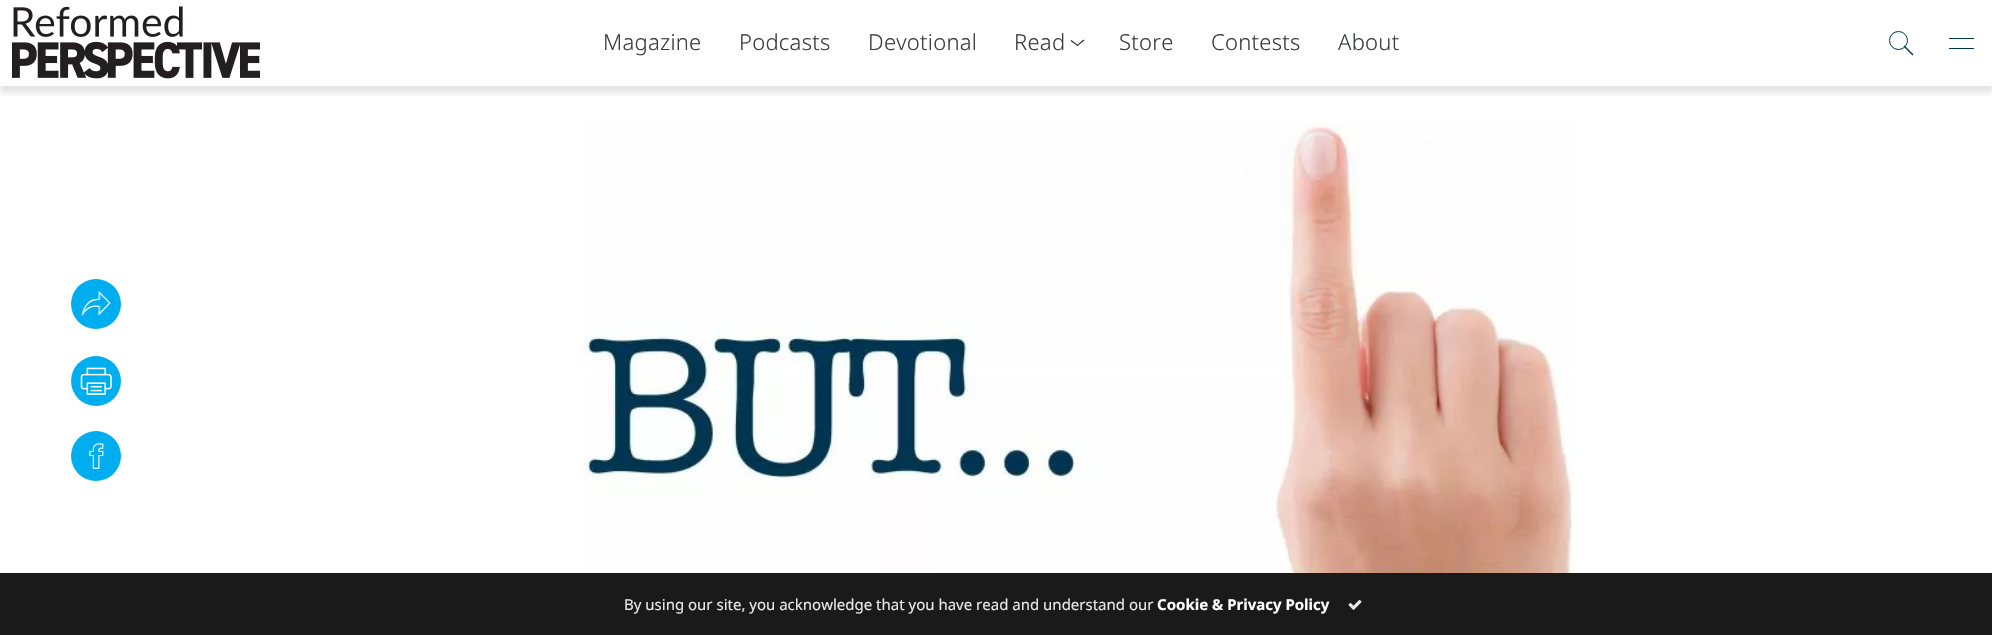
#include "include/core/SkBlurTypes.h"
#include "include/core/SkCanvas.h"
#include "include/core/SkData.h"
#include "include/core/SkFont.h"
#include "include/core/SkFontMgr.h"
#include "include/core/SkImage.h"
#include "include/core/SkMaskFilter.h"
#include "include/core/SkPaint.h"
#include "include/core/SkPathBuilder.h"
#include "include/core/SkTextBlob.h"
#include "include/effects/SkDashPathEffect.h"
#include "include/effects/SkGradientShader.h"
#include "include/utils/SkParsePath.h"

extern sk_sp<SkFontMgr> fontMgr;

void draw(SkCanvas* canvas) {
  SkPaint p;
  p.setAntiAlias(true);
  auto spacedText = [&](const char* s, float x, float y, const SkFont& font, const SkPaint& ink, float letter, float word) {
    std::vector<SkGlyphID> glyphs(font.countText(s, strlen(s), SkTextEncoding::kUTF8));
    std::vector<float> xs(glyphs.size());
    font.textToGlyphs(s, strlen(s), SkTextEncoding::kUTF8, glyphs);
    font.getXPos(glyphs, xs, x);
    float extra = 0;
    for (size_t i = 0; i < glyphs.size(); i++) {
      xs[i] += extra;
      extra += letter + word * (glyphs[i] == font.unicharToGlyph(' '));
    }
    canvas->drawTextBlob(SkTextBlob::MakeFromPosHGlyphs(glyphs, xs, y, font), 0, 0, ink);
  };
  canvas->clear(SK_ColorWHITE);
  canvas->save();
  canvas->clipRect(SkRect::MakeLTRB(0, 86, 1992, 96));
  p.setColor(SkColorSetARGB(26, 0, 0, 0));
  p.setMaskFilter(SkMaskFilter::MakeBlur(kNormal_SkBlurStyle, 3));
  canvas->drawRect(SkRect::MakeLTRB(0, 6, 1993, 93), p);
  p.setMaskFilter(nullptr);
  canvas->restore();
  canvas->drawImageRect(SkImages::DeferredFromEncodedData(SkData::MakeFromFileName("images/1.png")), SkRect::MakeLTRB(11, 6, 260, 79), SkSamplingOptions());
  p.setColor(SkColorSetRGB(51, 51, 51));
  canvas->drawPath(SkPathBuilder().moveTo(1083.5f, 39.5f).lineTo(1084.5f, 40.5f).lineTo(1077.5f, 46).lineTo(1076.5f, 45.5f).close().detach(), p);
  canvas->drawPath(SkPathBuilder().moveTo(1071.5f, 40).lineTo(1078.5f, 45.5f).lineTo(1077.5f, 46).lineTo(1070.5f, 41).close().detach(), p);
  p.setColor(SkColorSetRGB(0, 55, 75));
  canvas->drawPath(SkPathBuilder().moveTo(1904.5f, 45.5f).lineTo(1913.5f, 54.5f).lineTo(1912.5f, 55.5f).lineTo(1903.5f, 46.5f).close().detach(), p);
  p.setStyle(SkPaint::kStroke_Style);
  p.setStrokeWidth(1);
  canvas->drawCircle(1898.5f, 40.5f, 9, p);
  p.setStyle(SkPaint::kFill_Style);
  canvas->drawRect(SkRect::MakeLTRB(1949, 38, 1974, 39), p);
  canvas->drawRect(SkRect::MakeLTRB(1949, 48, 1974, 49), p);
  p.setColor(SkColorSetRGB(0, 174, 239));
  canvas->drawCircle(96, 304, 25, p);
  canvas->drawImageRect(SkImages::DeferredFromEncodedData(SkData::MakeFromFileName("images/2.png")), SkRect::MakeLTRB(81, 291, 111, 316), SkSamplingOptions());
  canvas->drawCircle(96, 381, 25, p);
  canvas->drawImageRect(SkImages::DeferredFromEncodedData(SkData::MakeFromFileName("images/3.png")), SkRect::MakeLTRB(80, 367, 112, 395), SkSamplingOptions());
  canvas->drawCircle(96, 456, 25, p);
  canvas->drawImageRect(SkImages::DeferredFromEncodedData(SkData::MakeFromFileName("images/4.png")), SkRect::MakeLTRB(89, 443, 104, 469), SkSamplingOptions());
  canvas->drawImageRect(SkImages::DeferredFromEncodedData(SkData::MakeFromFileName("images/5.png")), SkRect::MakeLTRB(583, 122, 1574, 573), SkSamplingOptions());
  p.setColor(SkColorSetRGB(26, 26, 26));
  canvas->drawRect(SkRect::MakeLTRB(0, 573, 1992, 635), p);
  canvas->drawImageRect(SkImages::DeferredFromEncodedData(SkData::MakeFromFileName("images/6.png")), SkRect::MakeLTRB(1348, 600, 1362, 610), SkSamplingOptions());
  SkFont font1(fontMgr->matchFamilyStyle("Noto Sans", SkFontStyle(300, SkFontStyle::kNormal_Width, SkFontStyle::kUpright_Slant)), 22);
  font1.setSubpixel(true);
  p.setColor(SkColorSetRGB(58, 60, 63));
  spacedText("Magazine", 603, 50, font1, p, 0.25f, 0);
  spacedText("Podcasts", 739, 50, font1, p, 0.25f, 0);
  spacedText("Devotional", 868, 50, font1, p, 0.25f, 0);
  spacedText("Read", 1014, 50, font1, p, 0.25f, 0);
  spacedText("Store", 1119, 50, font1, p, 0.25f, 0);
  spacedText("Contests", 1211, 50, font1, p, 0.25f, 0);
  spacedText("About", 1338, 50, font1, p, 0.25f, 0);
  SkFont font2(fontMgr->matchFamilyStyle("Noto Sans", SkFontStyle::Normal()), 15);
  font2.setSubpixel(true);
  p.setColor(SkColorSetRGB(232, 232, 232));
  canvas->drawString("By using our site, you acknowledge that you have read and understand our", 624, 610, font2, p);
  SkFont font3(fontMgr->matchFamilyStyle("Noto Sans", SkFontStyle::Bold()), 15);
  font3.setSubpixel(true);
  p.setColor(SK_ColorWHITE);
  canvas->drawString("Cookie & Privacy Policy", 1157, 610, font3, p);
}
